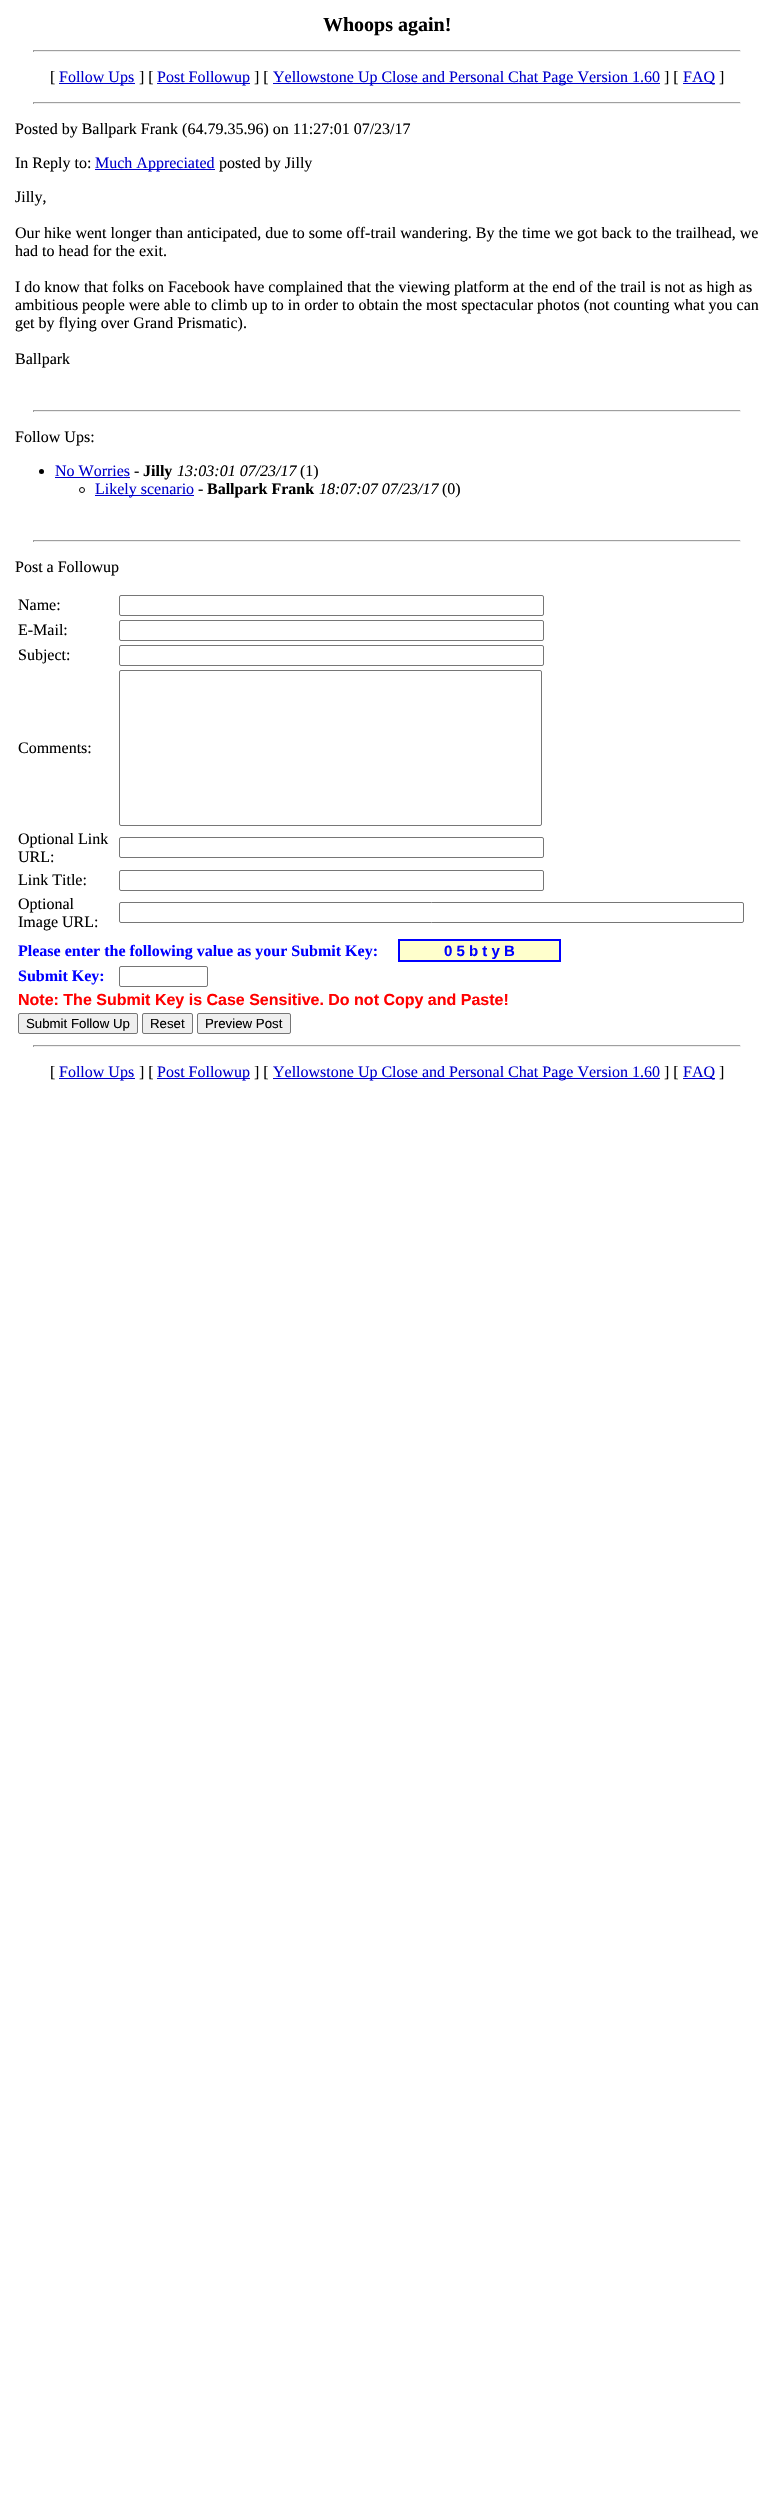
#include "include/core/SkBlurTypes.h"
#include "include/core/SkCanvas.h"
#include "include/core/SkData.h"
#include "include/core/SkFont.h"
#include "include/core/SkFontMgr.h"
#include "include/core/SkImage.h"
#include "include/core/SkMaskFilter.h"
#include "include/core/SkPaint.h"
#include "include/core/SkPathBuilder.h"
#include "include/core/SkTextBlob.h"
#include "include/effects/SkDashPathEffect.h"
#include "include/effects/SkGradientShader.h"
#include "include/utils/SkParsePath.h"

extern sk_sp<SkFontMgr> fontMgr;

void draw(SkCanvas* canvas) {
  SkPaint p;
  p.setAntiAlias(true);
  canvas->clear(SK_ColorWHITE);
  p.setColor(SkColorSetRGB(159, 159, 159));
  canvas->drawRect(SkRect::MakeLTRB(33, 50, 741, 51), p);
  p.setColor(SkColorSetRGB(238, 238, 238));
  canvas->drawRect(SkRect::MakeLTRB(740, 50, 741, 52), p);
  canvas->drawRect(SkRect::MakeLTRB(33, 51, 741, 52), p);
  p.setColor(SkColorSetRGB(159, 159, 159));
  canvas->drawRect(SkRect::MakeLTRB(33, 50, 34, 52), p);
  p.setColor(SkColorSetRGB(0, 0, 204));
  canvas->drawRect(SkRect::MakeLTRB(59, 83, 135, 84), p);
  canvas->drawRect(SkRect::MakeLTRB(157, 83, 250, 84), p);
  canvas->drawRect(SkRect::MakeLTRB(273, 83, 660, 84), p);
  canvas->drawRect(SkRect::MakeLTRB(683, 83, 715, 84), p);
  p.setColor(SkColorSetRGB(159, 159, 159));
  canvas->drawRect(SkRect::MakeLTRB(33, 102, 741, 103), p);
  p.setColor(SkColorSetRGB(238, 238, 238));
  canvas->drawRect(SkRect::MakeLTRB(740, 102, 741, 104), p);
  canvas->drawRect(SkRect::MakeLTRB(33, 103, 741, 104), p);
  p.setColor(SkColorSetRGB(159, 159, 159));
  canvas->drawRect(SkRect::MakeLTRB(33, 102, 34, 104), p);
  p.setColor(SkColorSetRGB(0, 0, 204));
  canvas->drawRect(SkRect::MakeLTRB(95, 169, 215, 170), p);
  p.setColor(SkColorSetRGB(159, 159, 159));
  canvas->drawRect(SkRect::MakeLTRB(33, 410, 741, 411), p);
  p.setColor(SkColorSetRGB(238, 238, 238));
  canvas->drawRect(SkRect::MakeLTRB(740, 410, 741, 412), p);
  canvas->drawRect(SkRect::MakeLTRB(33, 411, 741, 412), p);
  p.setColor(SkColorSetRGB(159, 159, 159));
  canvas->drawRect(SkRect::MakeLTRB(33, 410, 34, 412), p);
  p.setColor(SK_ColorBLACK);
  canvas->drawCircle(41.5f, 471.5f, 2.5f, p);
  p.setColor(SkColorSetRGB(0, 0, 204));
  canvas->drawRect(SkRect::MakeLTRB(55, 477, 130, 478), p);
  p.setStyle(SkPaint::kStroke_Style);
  p.setStrokeWidth(1);
  p.setColor(SK_ColorBLACK);
  canvas->drawCircle(82, 490, 2.5f, p);
  p.setStyle(SkPaint::kFill_Style);
  p.setColor(SkColorSetRGB(0, 0, 204));
  canvas->drawRect(SkRect::MakeLTRB(95, 495, 194, 496), p);
  p.setColor(SkColorSetRGB(159, 159, 159));
  canvas->drawRect(SkRect::MakeLTRB(33, 540, 741, 541), p);
  p.setColor(SkColorSetRGB(238, 238, 238));
  canvas->drawRect(SkRect::MakeLTRB(740, 540, 741, 542), p);
  canvas->drawRect(SkRect::MakeLTRB(33, 541, 741, 542), p);
  p.setColor(SkColorSetRGB(159, 159, 159));
  canvas->drawRect(SkRect::MakeLTRB(33, 540, 34, 542), p);
  p.setStyle(SkPaint::kStroke_Style);
  p.setColor(SkColorSetRGB(118, 118, 118));
  canvas->drawRoundRect(SkRect::MakeLTRB(119.5f, 595.5f, 543.5f, 615.5f), 1.5f, 1.5f, p);
  canvas->drawRoundRect(SkRect::MakeLTRB(119.5f, 620.5f, 543.5f, 640.5f), 1.5f, 1.5f, p);
  canvas->drawRoundRect(SkRect::MakeLTRB(119.5f, 645.5f, 543.5f, 665.5f), 1.5f, 1.5f, p);
  canvas->drawRoundRect(SkRect::MakeLTRB(119.5f, 670.5f, 541.5f, 825.5f), 1.5f, 1.5f, p);
  canvas->drawRoundRect(SkRect::MakeLTRB(119.5f, 837.5f, 543.5f, 857.5f), 1.5f, 1.5f, p);
  canvas->drawRoundRect(SkRect::MakeLTRB(119.5f, 870.5f, 543.5f, 890.5f), 1.5f, 1.5f, p);
  canvas->drawRoundRect(SkRect::MakeLTRB(119.5f, 902.5f, 743.5f, 922.5f), 1.5f, 1.5f, p);
  p.setStyle(SkPaint::kFill_Style);
  p.setColor(SkColorSetRGB(255, 255, 204));
  canvas->drawRect(SkRect::MakeLTRB(399, 940, 560, 961), p);
  p.setStyle(SkPaint::kStroke_Style);
  p.setStrokeWidth(2);
  p.setColor(SkColorSetRGB(0, 0, 255));
  canvas->drawRect(SkRect::MakeLTRB(399, 940, 560, 961), p);
  p.setStrokeWidth(1);
  p.setColor(SkColorSetRGB(118, 118, 118));
  canvas->drawRoundRect(SkRect::MakeLTRB(119.5f, 966.5f, 207.5f, 986.5f), 1.5f, 1.5f, p);
  p.setStyle(SkPaint::kFill_Style);
  p.setColor(SkColorSetRGB(239, 239, 239));
  canvas->drawRoundRect(SkRect::MakeLTRB(18.5f, 1013.5f, 137.5f, 1033.5f), 1.5f, 1.5f, p);
  p.setStyle(SkPaint::kStroke_Style);
  p.setColor(SkColorSetRGB(118, 118, 118));
  canvas->drawRoundRect(SkRect::MakeLTRB(18.5f, 1013.5f, 137.5f, 1033.5f), 1.5f, 1.5f, p);
  p.setStyle(SkPaint::kFill_Style);
  p.setColor(SkColorSetRGB(239, 239, 239));
  canvas->drawRoundRect(SkRect::MakeLTRB(142.5f, 1013.5f, 192.5f, 1033.5f), 1.5f, 1.5f, p);
  p.setStyle(SkPaint::kStroke_Style);
  p.setColor(SkColorSetRGB(118, 118, 118));
  canvas->drawRoundRect(SkRect::MakeLTRB(142.5f, 1013.5f, 192.5f, 1033.5f), 1.5f, 1.5f, p);
  p.setStyle(SkPaint::kFill_Style);
  p.setColor(SkColorSetRGB(239, 239, 239));
  canvas->drawRoundRect(SkRect::MakeLTRB(197.5f, 1013.5f, 290.5f, 1033.5f), 1.5f, 1.5f, p);
  p.setStyle(SkPaint::kStroke_Style);
  p.setColor(SkColorSetRGB(118, 118, 118));
  canvas->drawRoundRect(SkRect::MakeLTRB(197.5f, 1013.5f, 290.5f, 1033.5f), 1.5f, 1.5f, p);
  p.setStyle(SkPaint::kFill_Style);
  p.setColor(SkColorSetRGB(159, 159, 159));
  canvas->drawRect(SkRect::MakeLTRB(33, 1045, 741, 1046), p);
  p.setColor(SkColorSetRGB(238, 238, 238));
  canvas->drawRect(SkRect::MakeLTRB(740, 1045, 741, 1047), p);
  canvas->drawRect(SkRect::MakeLTRB(33, 1046, 741, 1047), p);
  p.setColor(SkColorSetRGB(159, 159, 159));
  canvas->drawRect(SkRect::MakeLTRB(33, 1045, 34, 1047), p);
  p.setColor(SkColorSetRGB(0, 0, 204));
  canvas->drawRect(SkRect::MakeLTRB(59, 1078, 135, 1079), p);
  canvas->drawRect(SkRect::MakeLTRB(157, 1078, 250, 1079), p);
  canvas->drawRect(SkRect::MakeLTRB(273, 1078, 660, 1079), p);
  canvas->drawRect(SkRect::MakeLTRB(683, 1078, 715, 1079), p);
  SkFont font1(fontMgr->matchFamilyStyle("Liberation Serif", SkFontStyle::Bold()), 20);
  font1.setSubpixel(true);
  p.setColor(SK_ColorBLACK);
  canvas->drawString("Whoops again!", 323, 31, font1, p);
  SkFont font2(fontMgr->matchFamilyStyle("Liberation Serif", SkFontStyle::Normal()), 16);
  font2.setSubpixel(true);
  canvas->drawString("[", 50, 82, font2, p);
  p.setColor(SkColorSetRGB(0, 0, 204));
  canvas->drawString("Follow Ups", 59, 82, font2, p);
  p.setColor(SK_ColorBLACK);
  canvas->drawString("] [", 139, 82, font2, p);
  p.setColor(SkColorSetRGB(0, 0, 204));
  canvas->drawString("Post Followup", 157, 82, font2, p);
  p.setColor(SK_ColorBLACK);
  canvas->drawString("] [", 254, 82, font2, p);
  p.setColor(SkColorSetRGB(0, 0, 204));
  canvas->drawString("Yellowstone Up Close and Personal Chat Page Version 1.60", 273, 82, font2, p);
  p.setColor(SK_ColorBLACK);
  canvas->drawString("] [", 664, 82, font2, p);
  p.setColor(SkColorSetRGB(0, 0, 204));
  canvas->drawString("FAQ", 683, 82, font2, p);
  p.setColor(SK_ColorBLACK);
  canvas->drawString("]", 719, 82, font2, p);
  canvas->drawString("Posted by Ballpark Frank (64.79.35.96) on 11:27:01 07/23/17", 15, 134, font2, p);
  canvas->drawString("In Reply to:", 15, 168, font2, p);
  p.setColor(SkColorSetRGB(0, 0, 204));
  canvas->drawString("Much Appreciated", 95, 168, font2, p);
  p.setColor(SK_ColorBLACK);
  canvas->drawString("posted by Jilly", 219, 168, font2, p);
  canvas->drawString("Jilly,", 15, 202, font2, p);
  canvas->drawString("Our hike went longer than anticipated, due to some off-trail wandering. By the time we got back to the trailhead, we", 15, 238, font2, p);
  canvas->drawString("had to head for the exit.", 15, 256, font2, p);
  canvas->drawString("I do know that folks on Facebook have complained that the viewing platform at the end of the trail is not as high as", 15, 292, font2, p);
  canvas->drawString("ambitious people were able to climb up to in order to obtain the most spectacular photos (not counting what you can", 15, 310, font2, p);
  canvas->drawString("get by flying over Grand Prismatic).", 15, 328, font2, p);
  canvas->drawString("Ballpark", 15, 364, font2, p);
  canvas->drawString("Follow Ups:", 15, 442, font2, p);
  p.setColor(SkColorSetRGB(0, 0, 204));
  canvas->drawString("No Worries", 55, 476, font2, p);
  p.setColor(SK_ColorBLACK);
  canvas->drawString("-", 134, 476, font2, p);
  SkFont font3(fontMgr->matchFamilyStyle("Liberation Serif", SkFontStyle::Bold()), 16);
  font3.setSubpixel(true);
  canvas->drawString("Jilly", 143, 476, font3, p);
  SkFont font4(fontMgr->matchFamilyStyle("Liberation Serif", SkFontStyle::Italic()), 16);
  font4.setSubpixel(true);
  canvas->drawString("13:03:01 07/23/17", 177, 476, font4, p);
  canvas->drawString("(1)", 300, 476, font2, p);
  p.setColor(SkColorSetRGB(0, 0, 204));
  canvas->drawString("Likely scenario", 95, 494, font2, p);
  p.setColor(SK_ColorBLACK);
  canvas->drawString("-", 198, 494, font2, p);
  canvas->drawString("Ballpark Frank", 207, 494, font3, p);
  canvas->drawString("18:07:07 07/23/17", 319, 494, font4, p);
  canvas->drawString("(0)", 442, 494, font2, p);
  canvas->drawString("Post a Followup", 15, 572, font2, p);
  canvas->drawString("Name:", 18, 610, font2, p);
  canvas->drawString("E-Mail:", 18, 635, font2, p);
  canvas->drawString("Subject:", 18, 660, font2, p);
  canvas->drawString("Comments:", 18, 753, font2, p);
  canvas->drawString("Optional Link", 18, 844, font2, p);
  canvas->drawString("URL:", 18, 862, font2, p);
  canvas->drawString("Link Title:", 18, 885, font2, p);
  canvas->drawString("Optional", 18, 909, font2, p);
  canvas->drawString("Image URL:", 18, 927, font2, p);
  p.setColor(SkColorSetRGB(0, 0, 255));
  canvas->drawString("Please enter the following value as your Submit Key:", 18, 956, font3, p);
  SkFont font5(fontMgr->matchFamilyStyle("Liberation Sans", SkFontStyle::Bold()), 15);
  font5.setSubpixel(true);
  canvas->drawString("0 5 b t y B", 444, 956, font5, p);
  canvas->drawString("Submit Key:", 18, 981, font3, p);
  SkFont font6(fontMgr->matchFamilyStyle("Liberation Sans", SkFontStyle::Bold()), 16);
  font6.setSubpixel(true);
  p.setColor(SkColorSetRGB(255, 0, 0));
  canvas->drawString("Note: The Submit Key is Case Sensitive. Do not Copy and Paste!", 18, 1005, font6, p);
  SkFont font7(fontMgr->matchFamilyStyle("Liberation Sans", SkFontStyle::Normal()), 13.25f);
  font7.setSubpixel(true);
  p.setColor(SK_ColorBLACK);
  canvas->drawString("Submit Follow Up", 26, 1028, font7, p);
  canvas->drawString("Reset", 150, 1028, font7, p);
  canvas->drawString("Preview Post", 205, 1028, font7, p);
  canvas->drawString("[", 50, 1077, font2, p);
  p.setColor(SkColorSetRGB(0, 0, 204));
  canvas->drawString("Follow Ups", 59, 1077, font2, p);
  p.setColor(SK_ColorBLACK);
  canvas->drawString("] [", 139, 1077, font2, p);
  p.setColor(SkColorSetRGB(0, 0, 204));
  canvas->drawString("Post Followup", 157, 1077, font2, p);
  p.setColor(SK_ColorBLACK);
  canvas->drawString("] [", 254, 1077, font2, p);
  p.setColor(SkColorSetRGB(0, 0, 204));
  canvas->drawString("Yellowstone Up Close and Personal Chat Page Version 1.60", 273, 1077, font2, p);
  p.setColor(SK_ColorBLACK);
  canvas->drawString("] [", 664, 1077, font2, p);
  p.setColor(SkColorSetRGB(0, 0, 204));
  canvas->drawString("FAQ", 683, 1077, font2, p);
  p.setColor(SK_ColorBLACK);
  canvas->drawString("]", 719, 1077, font2, p);
}
